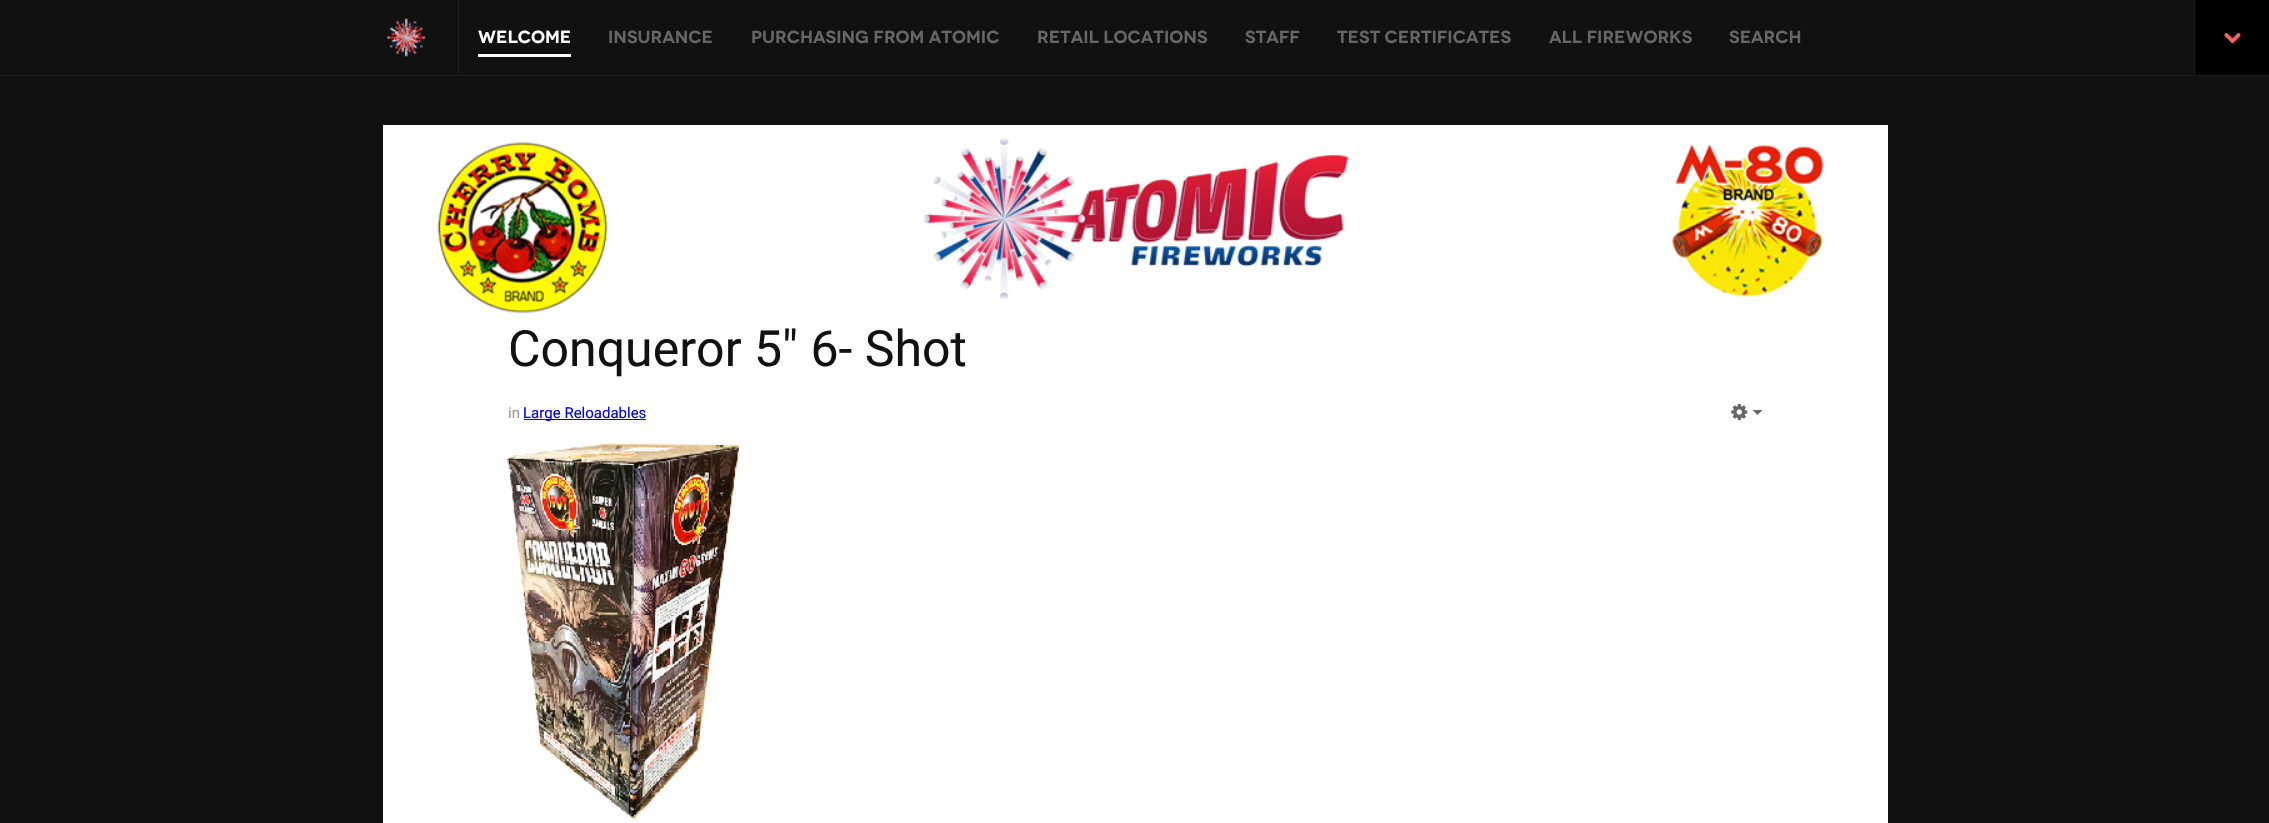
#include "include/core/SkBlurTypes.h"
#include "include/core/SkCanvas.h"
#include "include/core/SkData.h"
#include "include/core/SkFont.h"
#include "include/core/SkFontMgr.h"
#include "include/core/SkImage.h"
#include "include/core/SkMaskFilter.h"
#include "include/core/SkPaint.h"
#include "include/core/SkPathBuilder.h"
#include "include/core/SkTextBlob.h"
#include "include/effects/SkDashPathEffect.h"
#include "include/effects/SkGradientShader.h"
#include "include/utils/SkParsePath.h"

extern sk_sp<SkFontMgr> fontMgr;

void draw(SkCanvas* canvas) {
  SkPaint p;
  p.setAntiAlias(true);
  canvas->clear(SkColorSetRGB(17, 17, 17));
  p.setColor(SkColorSetRGB(29, 29, 29));
  canvas->drawRect(SkRect::MakeLTRB(0, 75, 2269, 76), p);
  canvas->drawRect(SkRect::MakeLTRB(458, 0, 459, 75), p);
  canvas->drawImageRect(SkImages::DeferredFromEncodedData(SkData::MakeFromFileName("images/1.png")), SkRect::MakeLTRB(387, 18, 426, 57), SkSamplingOptions());
  p.setColor(SK_ColorWHITE);
  canvas->drawRect(SkRect::MakeLTRB(478, 54, 571, 57), p);
  p.setColor(SK_ColorBLACK);
  canvas->drawRect(SkRect::MakeLTRB(2195, 0, 2269, 75), p);
  p.setColor(SkColorSetRGB(29, 29, 29));
  canvas->drawRect(SkRect::MakeLTRB(2194, 0, 2195, 75), p);
  canvas->drawImageRect(SkImages::DeferredFromEncodedData(SkData::MakeFromFileName("images/2.png")), SkRect::MakeLTRB(2224, 32, 2241, 44), SkSamplingOptions());
  p.setColor(SK_ColorWHITE);
  canvas->drawRect(SkRect::MakeLTRB(383, 125, 1888, 823), p);
  canvas->drawImageRect(SkImages::DeferredFromEncodedData(SkData::MakeFromFileName("images/3.png")), SkRect::MakeLTRB(437, 141, 608, 314), SkSamplingOptions());
  canvas->drawImageRect(SkImages::DeferredFromEncodedData(SkData::MakeFromFileName("images/4.png")), SkRect::MakeLTRB(923, 137, 1349, 300), SkSamplingOptions());
  canvas->drawImageRect(SkImages::DeferredFromEncodedData(SkData::MakeFromFileName("images/5.png")), SkRect::MakeLTRB(1672, 144, 1824, 297), SkSamplingOptions());
  p.setColor(SkColorSetRGB(0, 0, 255));
  canvas->drawRect(SkRect::MakeLTRB(524, 419, 646, 420), p);
  canvas->drawImageRect(SkImages::DeferredFromEncodedData(SkData::MakeFromFileName("images/6.png")), SkRect::MakeLTRB(1731, 404, 1748, 421), SkSamplingOptions());
  p.setColor(SkColorSetRGB(102, 102, 102));
  canvas->drawPath(SkPathBuilder().moveTo(1752.5f, 410).lineTo(1762.5f, 410).lineTo(1757.5f, 415).close().detach(), p);
  canvas->drawImageRect(SkImages::DeferredFromEncodedData(SkData::MakeFromFileName("images/7.png")), SkRect::MakeLTRB(507, 443, 739, 819), SkSamplingOptions());
  SkFont font1(fontMgr->matchFamilyStyle("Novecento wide", SkFontStyle(600, SkFontStyle::kNormal_Width, SkFontStyle::kUpright_Slant)), 17.5f);
  font1.setSubpixel(true);
  p.setColor(SK_ColorWHITE);
  canvas->drawString("Welcome", 478, 43, font1, p);
  p.setColor(SkColorSetRGB(102, 102, 102));
  canvas->drawString("Insurance", 608, 43, font1, p);
  canvas->drawString("Purchasing From Atomic", 751, 43, font1, p);
  canvas->drawString("Retail Locations", 1037, 43, font1, p);
  canvas->drawString("Staff", 1245, 43, font1, p);
  canvas->drawString("Test Certificates", 1337, 43, font1, p);
  canvas->drawString("All Fireworks", 1549, 43, font1, p);
  canvas->drawString("Search", 1729, 43, font1, p);
  SkFont font2(fontMgr->matchFamilyStyle("Roboto", SkFontStyle::Normal()), 50);
  font2.setSubpixel(true);
  p.setColor(SkColorSetRGB(17, 17, 17));
  canvas->drawString("Conqueror 5\" 6- Shot", 508, 366, font2, p);
  SkFont font3(fontMgr->matchFamilyStyle("Roboto", SkFontStyle::Normal()), 15);
  font3.setSubpixel(true);
  p.setColor(SkColorSetRGB(153, 153, 153));
  canvas->drawString("in", 508, 418, font3, p);
  p.setColor(SkColorSetRGB(0, 0, 255));
  canvas->drawString("Large Reloadables", 523, 418, font3, p);
}
